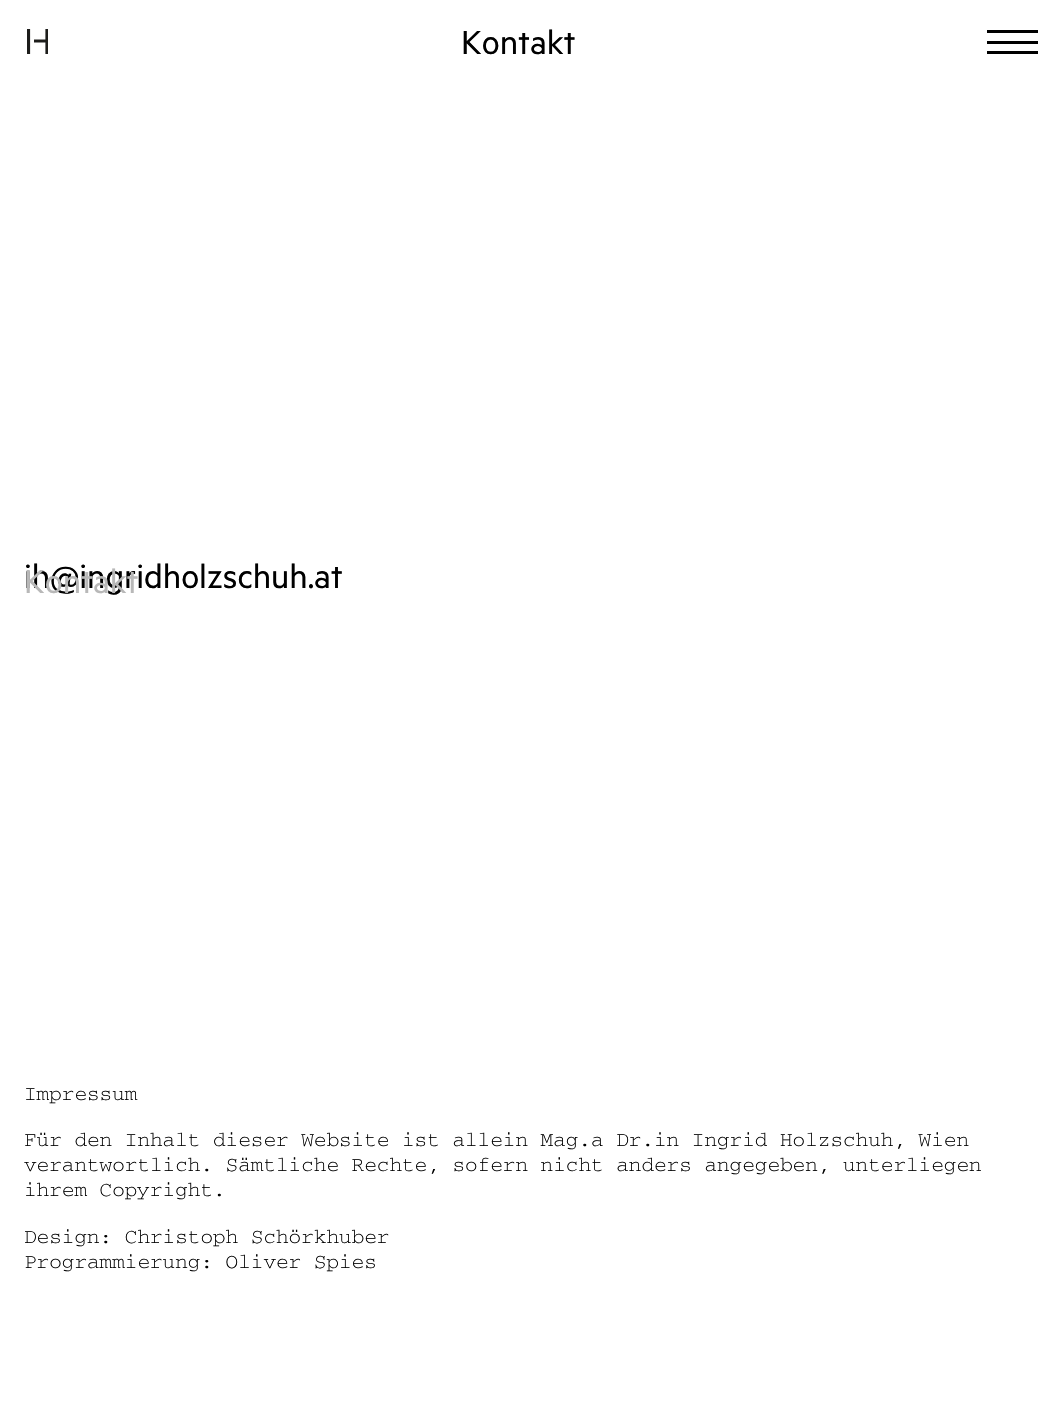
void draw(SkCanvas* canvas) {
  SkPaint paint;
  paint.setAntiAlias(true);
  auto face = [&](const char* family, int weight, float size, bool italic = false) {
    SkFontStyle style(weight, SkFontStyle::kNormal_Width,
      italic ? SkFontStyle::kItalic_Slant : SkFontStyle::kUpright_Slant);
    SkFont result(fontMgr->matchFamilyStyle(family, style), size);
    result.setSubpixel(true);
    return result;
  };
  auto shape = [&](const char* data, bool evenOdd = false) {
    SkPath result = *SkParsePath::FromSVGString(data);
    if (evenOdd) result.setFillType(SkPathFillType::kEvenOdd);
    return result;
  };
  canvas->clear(0xffffffff);
  canvas->save();
  canvas->clipRect(SkRect::MakeXYWH(27, 29, 21, 25));
  paint.setStroke(true);
  paint.setStrokeWidth(3.2f);
  paint.setColor(0xff1d1d1b);
  canvas->drawPath(shape("M47 28.5V54.5M28.5 28.5V54.5"), paint);
  canvas->restore();
  paint.setStrokeWidth(3);
  canvas->drawPath(shape("M48 41H34"), paint);
  paint.setStroke(false);
  {
    const struct { float x, y, w, h; SkColor color; } items[] = {
      {987, 30, 51, 3, 0xff000000},
      {987, 41, 51, 3, 0xff000000},
      {987, 51, 51, 3, 0xff000000},
    };
    for (auto [x, y, w, h, color] : items) {
      paint.setColor(color);
      canvas->drawRect(SkRect::MakeXYWH(x, y, w, h), paint);
    }
  }
  auto f0 = face("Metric", 400, 37.5f);
  canvas->drawString("Kontakt", 461, 54, f0, paint);
  canvas->drawString("ih@ingridholzschuh.at", 24, 588, f0, paint);
  auto f1 = face("Courier", 400, 21);
  {
    const struct { const char* s; float x, y; } items[] = {
      {"Impressum", 24, 1100},
      {"Für den Inhalt dieser Website ist allein Mag.a Dr.in Ingrid Holzschuh, Wien", 24, 1146},
      {"verantwortlich. Sämtliche Rechte, sofern nicht anders angegeben, unterliegen", 24, 1171},
      {"ihrem Copyright.", 24, 1196},
      {"Design: Christoph Schörkhuber", 24, 1243},
      {"Programmierung: Oliver Spies", 24, 1268},
    };
    for (auto [s, x, y] : items) {
      canvas->drawString(s, x, y, f1, paint);
    }
  }
  paint.setColor(0xffb8b8b8);
  canvas->drawString("Kontakt", 24, 593, f0, paint);
}
